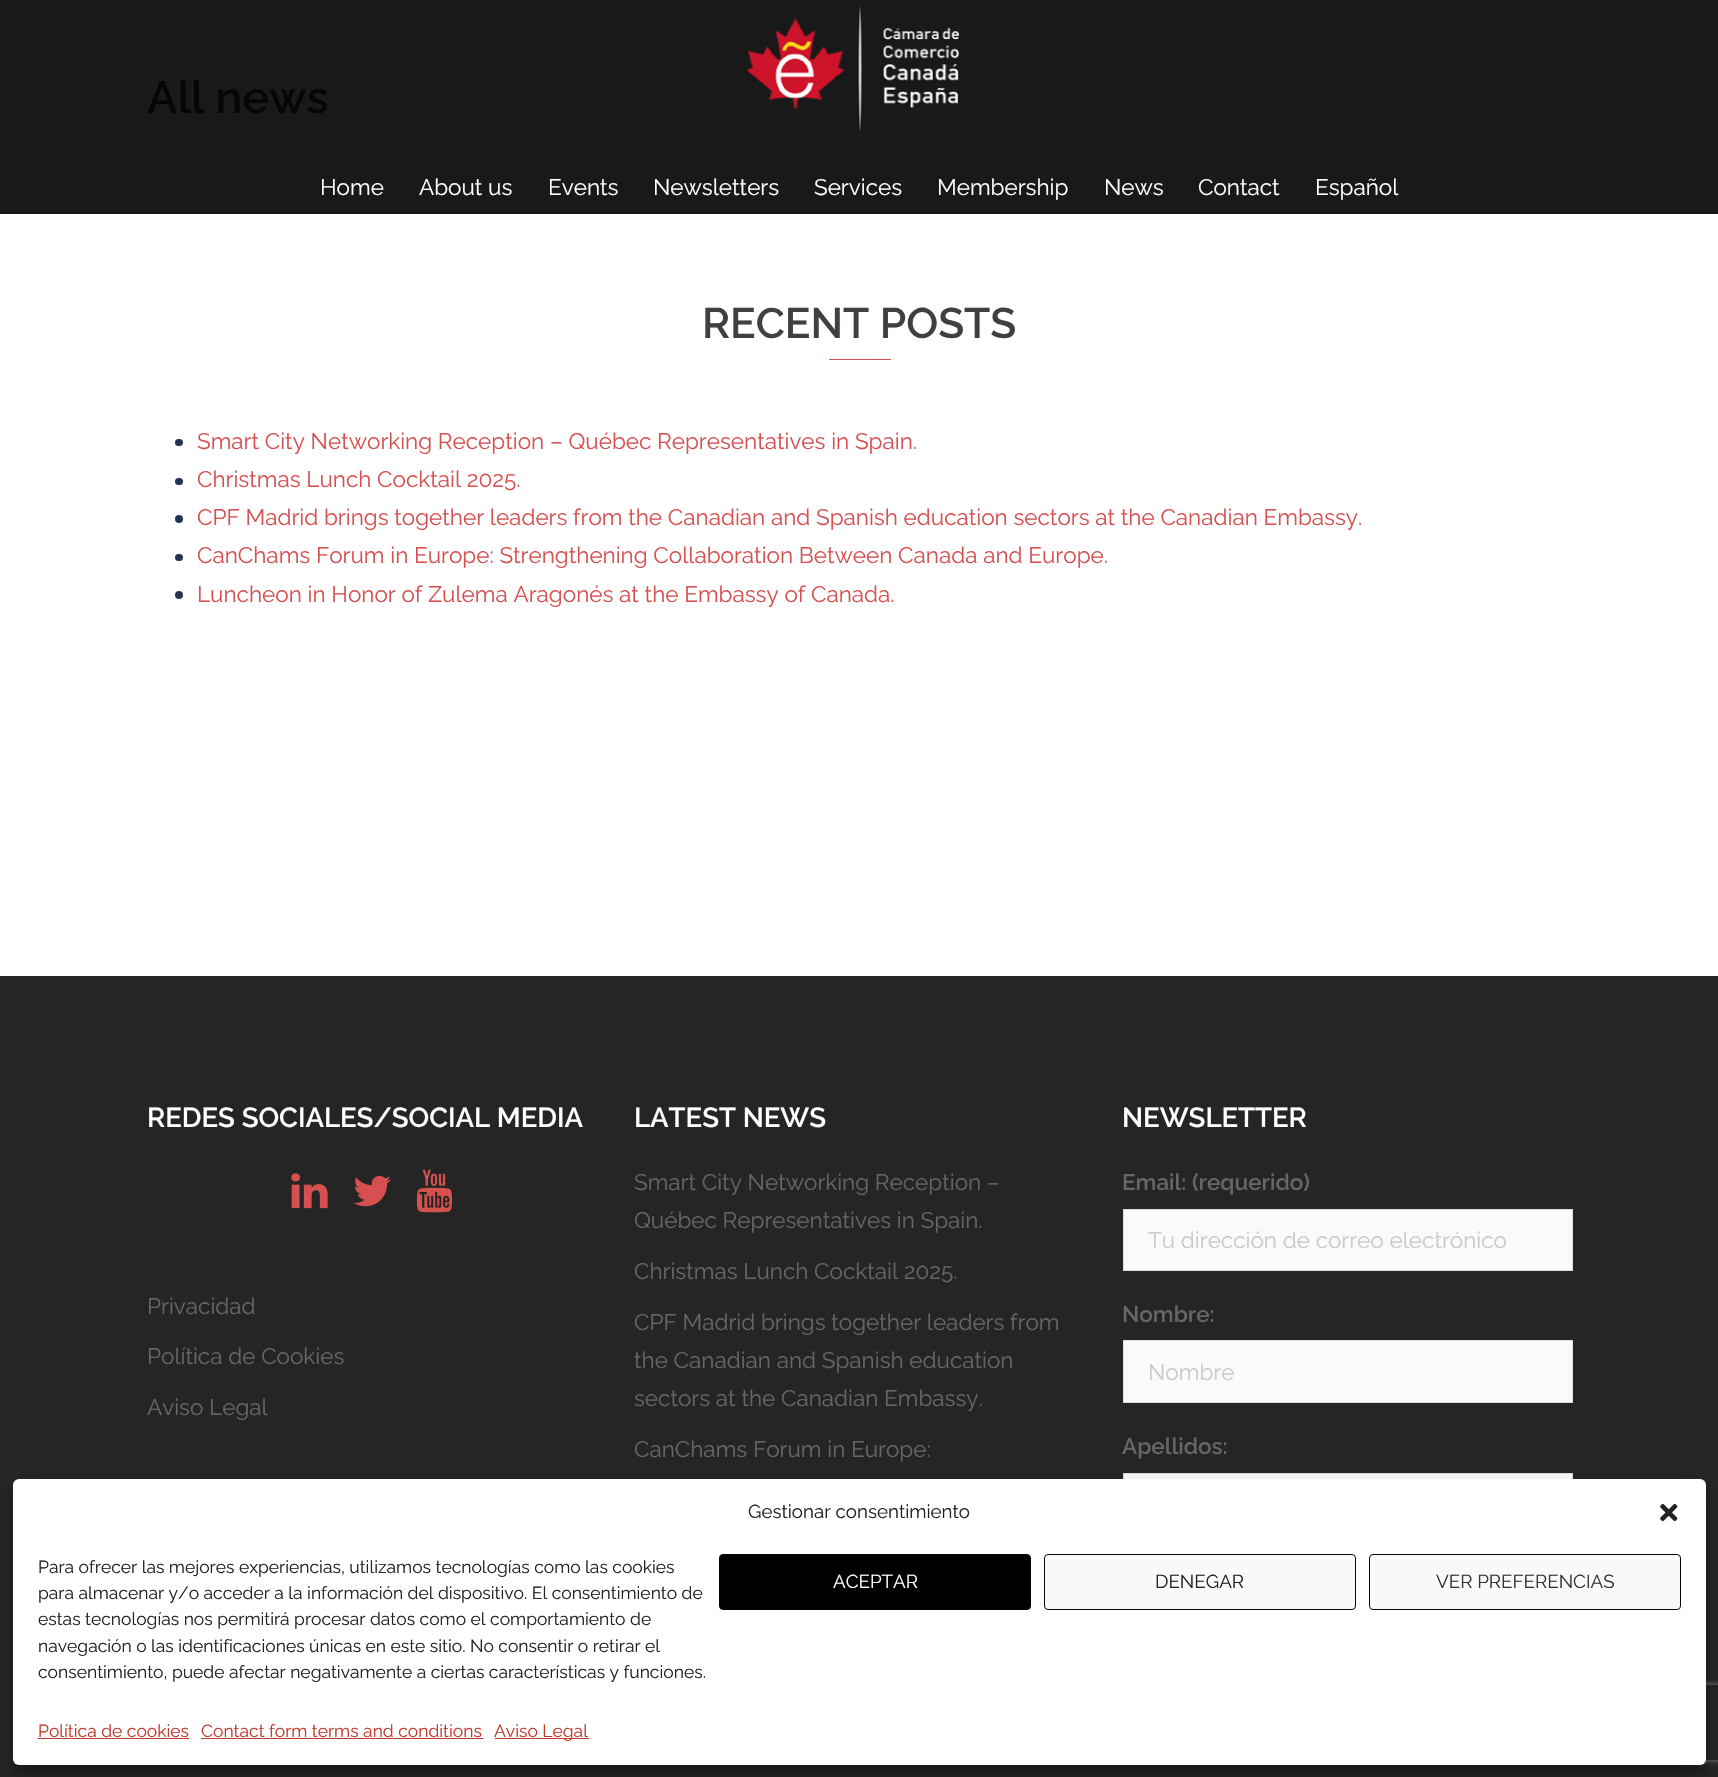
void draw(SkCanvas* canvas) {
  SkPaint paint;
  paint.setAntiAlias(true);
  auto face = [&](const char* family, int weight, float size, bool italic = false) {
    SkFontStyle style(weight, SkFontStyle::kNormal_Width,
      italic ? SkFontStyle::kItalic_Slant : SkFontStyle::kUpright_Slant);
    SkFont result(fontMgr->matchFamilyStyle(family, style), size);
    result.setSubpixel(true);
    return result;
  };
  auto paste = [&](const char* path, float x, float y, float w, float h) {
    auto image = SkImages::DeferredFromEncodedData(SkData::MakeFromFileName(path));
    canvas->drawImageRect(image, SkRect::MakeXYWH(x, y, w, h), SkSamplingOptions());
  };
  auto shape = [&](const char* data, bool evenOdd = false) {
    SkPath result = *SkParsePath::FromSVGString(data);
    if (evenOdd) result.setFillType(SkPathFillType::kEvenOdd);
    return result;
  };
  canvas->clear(0xffffffff);
  paint.setColor(0xff191919);
  canvas->drawRect(SkRect::MakeXYWH(0, 0, 1718, 214), paint);
  paint.setColor(0xffd65050);
  canvas->drawRect(SkRect::MakeXYWH(829, 359, 62, 1), paint);
  paint.setColor(0xff233452);
  canvas->drawRoundRect(SkRect::MakeXYWH(175, 439, 8, 7), 3.5f, 3.5f, paint);
  canvas->drawRoundRect(SkRect::MakeXYWH(175, 478, 8, 7), 3.5f, 3.5f, paint);
  canvas->drawCircle(179, 519, 4, paint);
  canvas->drawRoundRect(SkRect::MakeXYWH(175, 554, 8, 7), 3.5f, 3.5f, paint);
  canvas->drawCircle(179, 595, 4, paint);
  paste("img/1.png", 747, 6, 212, 125);
  paint.setColor(0xff252525);
  canvas->drawRect(SkRect::MakeXYWH(0, 976, 1718, 801), paint);
  paste("img/2.png", 291, 1173, 37, 36);
  paste("img/3.png", 353, 1175, 38, 32);
  paste("img/4.png", 416, 1169, 37, 44);
  paint.setColor(0xfffafafa);
  canvas->drawRect(SkRect::MakeXYWH(1123.5f, 1209.5f, 449, 61), paint);
  paint.setStroke(true);
  paint.setStrokeWidth(1);
  paint.setColor(0xffdbdbdb);
  canvas->drawRect(SkRect::MakeXYWH(1123.5f, 1209.5f, 449, 61), paint);
  paint.setStroke(false);
  paint.setColor(0xfffafafa);
  canvas->drawRect(SkRect::MakeXYWH(1123.5f, 1340.5f, 449, 62), paint);
  paint.setStroke(true);
  paint.setColor(0xffdbdbdb);
  canvas->drawRect(SkRect::MakeXYWH(1123.5f, 1340.5f, 449, 62), paint);
  paint.setStroke(false);
  paint.setColor(0xfffafafa);
  canvas->drawRect(SkRect::MakeXYWH(1124, 1474, 448, 5), paint);
  paint.setStroke(true);
  paint.setColor(0xffdbdbdb);
  canvas->drawRect(SkRect::MakeXYWH(1123.5f, 1473.5f, 449, 61), paint);
  paint.setStroke(false);
  paint.setColor(0x3b000000);
  paint.setMaskFilter(SkMaskFilter::MakeBlur(kNormal_SkBlurStyle, 4));
  canvas->drawRoundRect(SkRect::MakeXYWH(13, 1486, 1693, 287), 6, 6, paint);
  paint.setMaskFilter(nullptr);
  paint.setColor(0x30000000);
  paint.setMaskFilter(SkMaskFilter::MakeBlur(kNormal_SkBlurStyle, 12.5f));
  canvas->drawRoundRect(SkRect::MakeXYWH(13, 1491, 1693, 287), 6, 6, paint);
  paint.setMaskFilter(nullptr);
  canvas->save();
  canvas->clipPath(shape("M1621 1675H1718V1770H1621ZM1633.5 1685H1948.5C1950 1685 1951 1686 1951 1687.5V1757.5C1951 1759 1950 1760 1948.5 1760H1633.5C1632 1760 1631 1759 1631 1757.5V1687.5C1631 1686 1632 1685 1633.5 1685Z", true), true);
  paint.setColor(0xff808080);
  paint.setMaskFilter(SkMaskFilter::MakeBlur(kNormal_SkBlurStyle, 3));
  canvas->drawRoundRect(SkRect::MakeXYWH(1631, 1685, 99, 75), 2.5f, 2.5f, paint);
  paint.setMaskFilter(nullptr);
  canvas->restore();
  paint.setColor(0xffffffff);
  canvas->drawRoundRect(SkRect::MakeXYWH(13, 1479, 1693, 286), 6, 6, paint);
  paste("img/5.png", 1660, 1503, 18, 19);
  paint.setColor(0xff000000);
  canvas->drawRoundRect(SkRect::MakeXYWH(719.5f, 1554.5f, 311, 55), 3.5f, 3.5f, paint);
  paint.setStroke(true);
  paint.setColor(0xff060606);
  canvas->drawRoundRect(SkRect::MakeXYWH(719.5f, 1554.5f, 311, 55), 3.5f, 3.5f, paint);
  paint.setStroke(false);
  paint.setColor(0xfff9f9f9);
  canvas->drawRoundRect(SkRect::MakeXYWH(1044.5f, 1554.5f, 311, 55), 3.5f, 3.5f, paint);
  paint.setStroke(true);
  paint.setColor(0xff060606);
  canvas->drawRoundRect(SkRect::MakeXYWH(1044.5f, 1554.5f, 311, 55), 3.5f, 3.5f, paint);
  paint.setStroke(false);
  paint.setColor(0xfff9f9f9);
  canvas->drawRoundRect(SkRect::MakeXYWH(1369.5f, 1554.5f, 311, 55), 3.5f, 3.5f, paint);
  paint.setStroke(true);
  paint.setColor(0xff080707);
  canvas->drawRoundRect(SkRect::MakeXYWH(1369.5f, 1554.5f, 311, 55), 3.5f, 3.5f, paint);
  paint.setStroke(false);
  {
    const struct { float x, y, w, h; SkColor color; } items[] = {
      {38, 1738, 151, 1, 0xffc0392b},
      {201, 1738, 282, 1, 0xffc0392b},
      {495, 1738, 94, 1, 0xffc0392b},
    };
    for (auto [x, y, w, h, color] : items) {
      paint.setColor(color);
      canvas->drawRect(SkRect::MakeXYWH(x, y, w, h), paint);
    }
  }
  auto f0 = face("Raleway", 600, 45);
  paint.setColor(0xff070606);
  canvas->drawString("All news", 147, 113, f0, paint);
  auto f1 = face("Raleway", 600, 42.5f);
  paint.setColor(0xff443f3f);
  canvas->drawString("RECENT POSTS", 702, 338, f1, paint);
  auto f2 = face("Raleway", 400, 22.5f);
  paint.setColor(0xffd65050);
  {
    const struct { const char* s; float x, y; } items[] = {
      {"Smart City Networking Reception – Québec Representatives in Spain.", 197, 449},
      {"Christmas Lunch Cocktail 2025.", 197, 487},
      {"CPF Madrid brings together leaders from the Canadian and Spanish education sectors at the Canadian Embassy.", 197, 525},
      {"CanChams Forum in Europe: Strengthening Collaboration Between Canada and Europe.", 197, 563},
      {"Luncheon in Honor of Zulema Aragonés at the Embassy of Canada.", 197, 602},
    };
    for (auto [s, x, y] : items) {
      canvas->drawString(s, x, y, f2, paint);
    }
  }
  paint.setColor(0xffffffff);
  {
    const struct { const char* s; float x, y; } items[] = {
      {"Home", 320, 195},
      {"About us", 419, 195},
      {"Events", 548, 195},
      {"Newsletters", 653, 195},
      {"Services", 814, 195},
      {"Membership", 937, 195},
      {"News", 1104, 195},
      {"Contact", 1198, 195},
      {"Español", 1315, 195},
    };
    for (auto [s, x, y] : items) {
      canvas->drawString(s, x, y, f2, paint);
    }
  }
  auto f3 = face("Raleway", 600, 27.5f);
  canvas->drawString("REDES SOCIALES/SOCIAL MEDIA", 147, 1127, f3, paint);
  paint.setColor(0xff666666);
  {
    const struct { const char* s; float x, y; } items[] = {
      {"Privacidad", 147, 1314},
      {"Política de Cookies", 147, 1364},
      {"Aviso Legal", 147, 1415},
    };
    for (auto [s, x, y] : items) {
      canvas->drawString(s, x, y, f2, paint);
    }
  }
  paint.setColor(0xffffffff);
  canvas->drawString("LATEST NEWS", 634, 1127, f3, paint);
  paint.setColor(0xff666666);
  {
    const struct { const char* s; float x, y; } items[] = {
      {"Smart City Networking Reception –", 634, 1190},
      {"Québec Representatives in Spain.", 634, 1228},
      {"Christmas Lunch Cocktail 2025.", 634, 1279},
      {"CPF Madrid brings together leaders from", 634, 1330},
      {"the Canadian and Spanish education", 634, 1368},
      {"sectors at the Canadian Embassy.", 634, 1406},
      {"CanChams Forum in Europe:", 634, 1457},
    };
    for (auto [s, x, y] : items) {
      canvas->drawString(s, x, y, f2, paint);
    }
  }
  paint.setColor(0xffffffff);
  canvas->drawString("NEWSLETTER", 1122, 1127, f3, paint);
  auto f4 = face("Raleway", 600, 22.5f);
  paint.setColor(0xff666666);
  canvas->drawString("Email: (requerido)", 1122, 1190, f4, paint);
  paint.setColor(0xffcacaca);
  canvas->drawString("Tu dirección de correo electrónico", 1148, 1248, f2, paint);
  paint.setColor(0xff666666);
  canvas->drawString("Nombre:", 1122, 1322, f4, paint);
  paint.setColor(0xffcacaca);
  canvas->drawString("Nombre", 1148, 1380, f2, paint);
  paint.setColor(0xff666666);
  canvas->drawString("Apellidos:", 1122, 1454, f4, paint);
  auto f5 = face("Raleway", 400, 18.75f);
  paint.setColor(0xff222222);
  canvas->drawString("Gestionar consentimiento", 748, 1518, f5, paint);
  auto f6 = face("Raleway", 400, 17.5f);
  {
    const struct { const char* s; float x, y; } items[] = {
      {"Para ofrecer las mejores experiencias, utilizamos tecnologías como las cookies", 38, 1573},
      {"para almacenar y/o acceder a la información del dispositivo. El consentimiento de", 38, 1599},
      {"estas tecnologías nos permitirá procesar datos como el comportamiento de", 38, 1625},
      {"navegación o las identificaciones únicas en este sitio. No consentir o retirar el", 38, 1652},
      {"consentimiento, puede afectar negativamente a ciertas características y funciones.", 38, 1678},
    };
    for (auto [s, x, y] : items) {
      canvas->drawString(s, x, y, f6, paint);
    }
  }
  paint.setColor(0xffffffff);
  canvas->drawString("ACEPTAR", 833, 1588, f5, paint);
  paint.setColor(0xff222222);
  canvas->drawString("DENEGAR", 1155, 1588, f5, paint);
  paint.setColor(0xff333333);
  canvas->drawString("VER PREFERENCIAS", 1436, 1588, f5, paint);
  paint.setColor(0xffc0392b);
  {
    const struct { const char* s; float x, y; } items[] = {
      {"Política de cookies", 38, 1737},
      {"Contact form terms and conditions", 201, 1737},
      {"Aviso Legal", 494, 1737},
    };
    for (auto [s, x, y] : items) {
      canvas->drawString(s, x, y, f6, paint);
    }
  }
}
